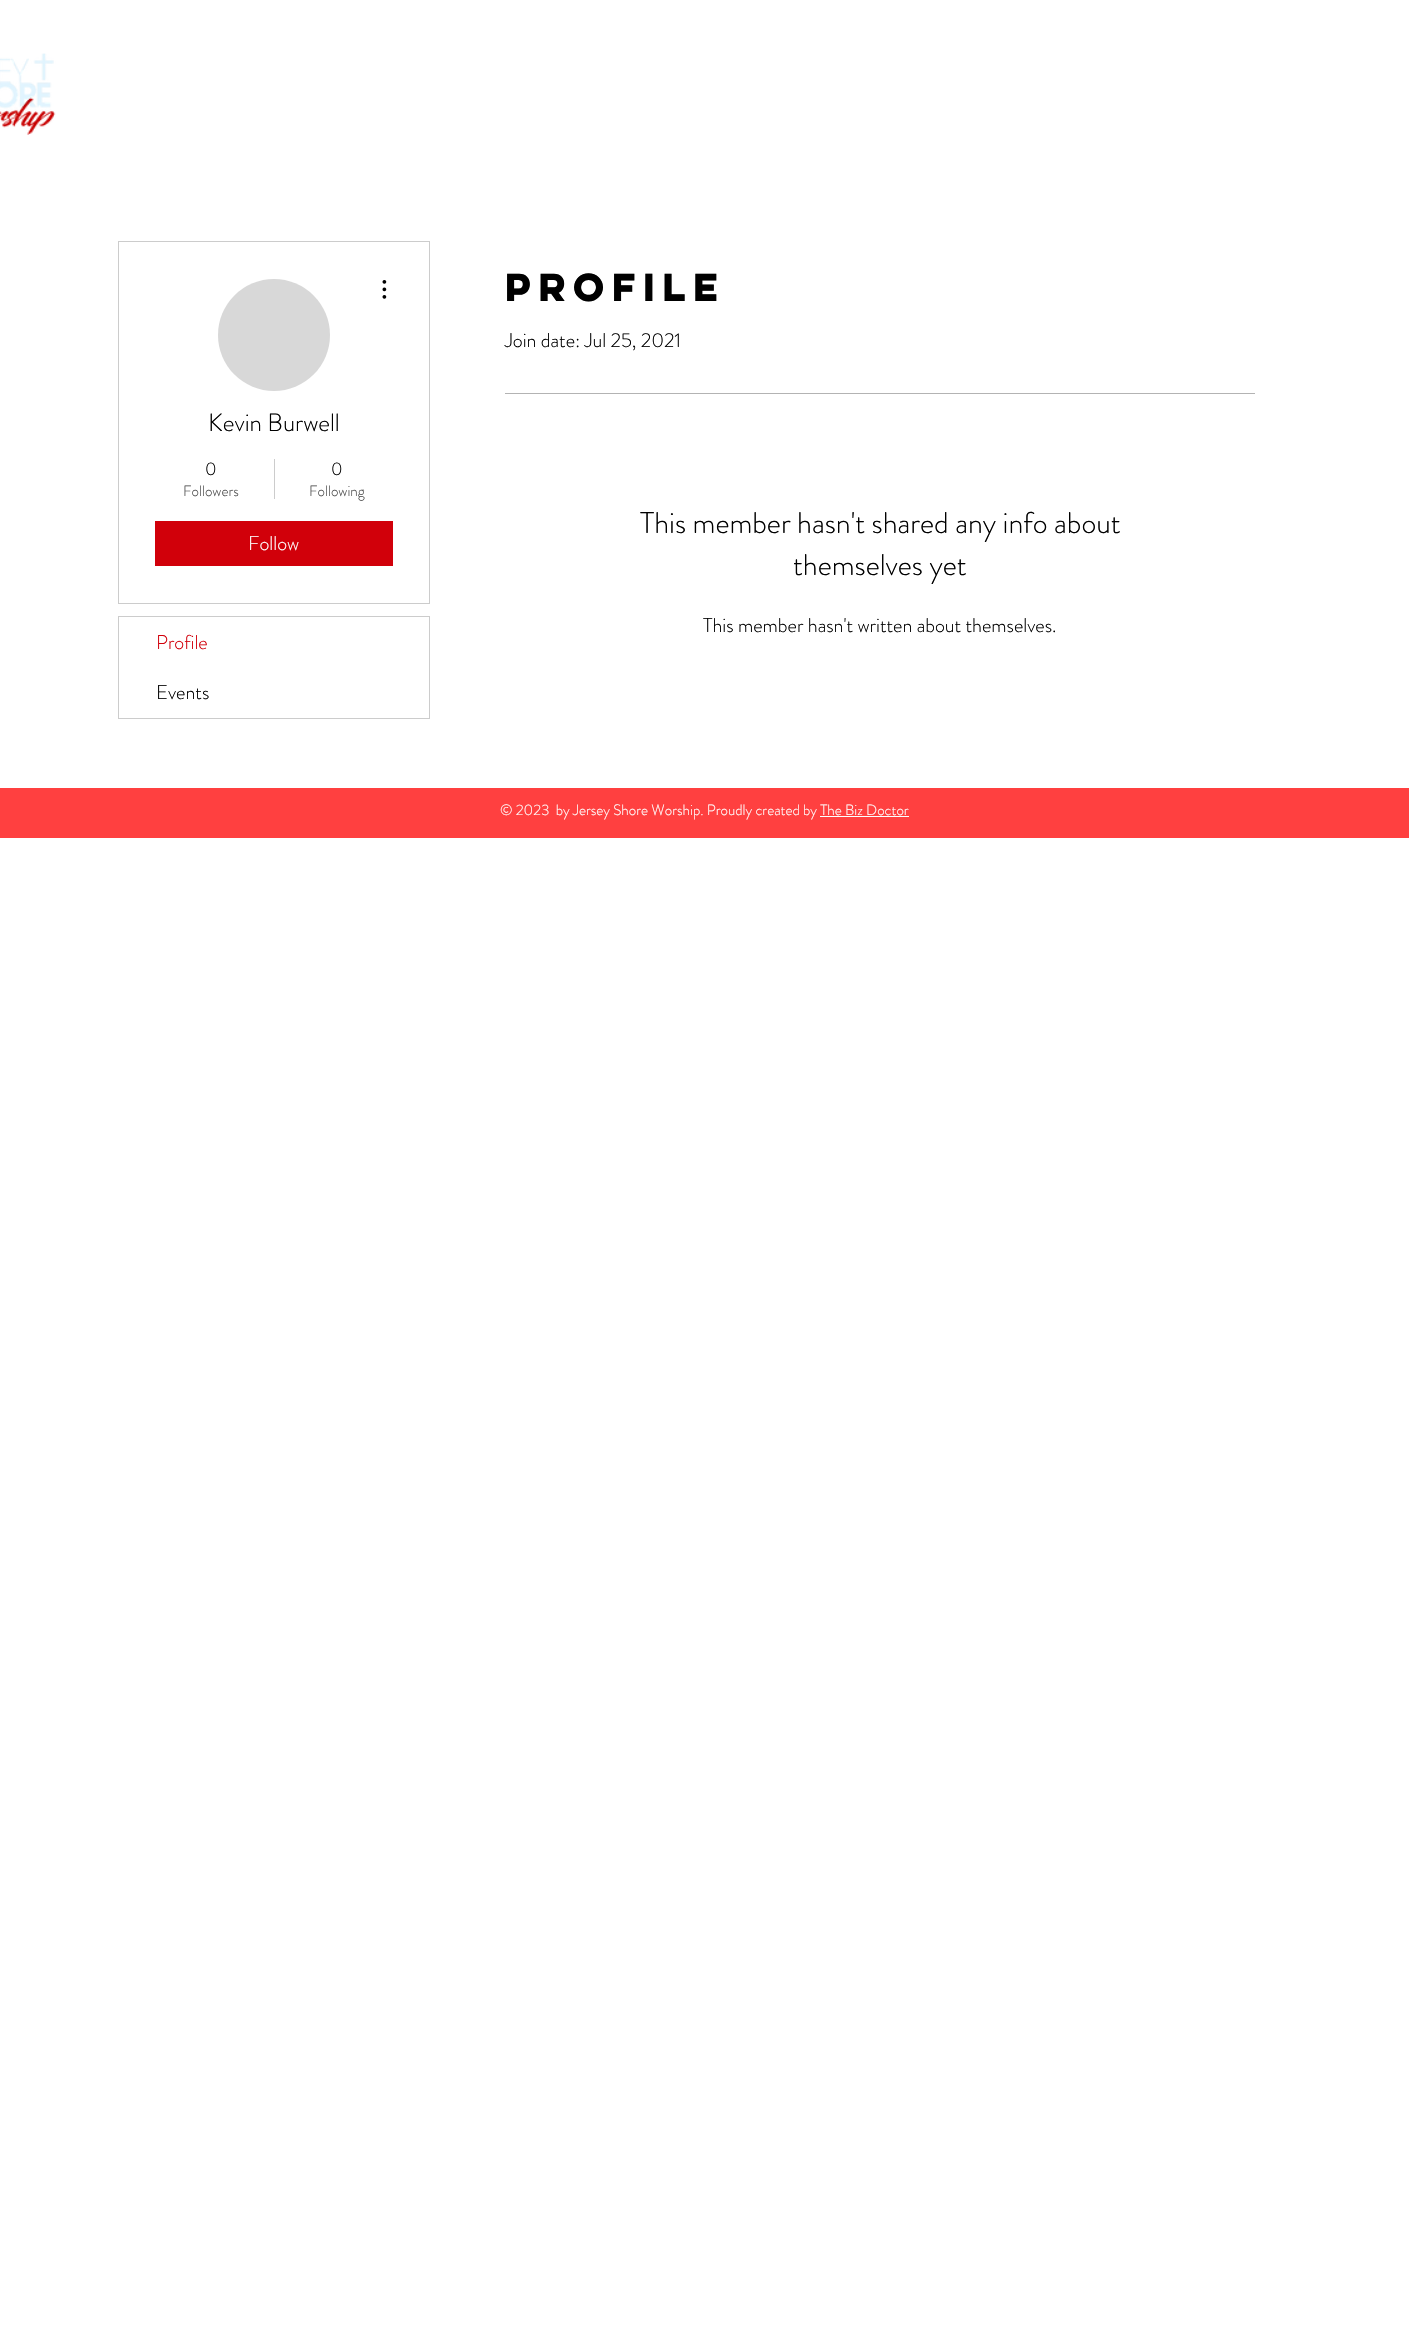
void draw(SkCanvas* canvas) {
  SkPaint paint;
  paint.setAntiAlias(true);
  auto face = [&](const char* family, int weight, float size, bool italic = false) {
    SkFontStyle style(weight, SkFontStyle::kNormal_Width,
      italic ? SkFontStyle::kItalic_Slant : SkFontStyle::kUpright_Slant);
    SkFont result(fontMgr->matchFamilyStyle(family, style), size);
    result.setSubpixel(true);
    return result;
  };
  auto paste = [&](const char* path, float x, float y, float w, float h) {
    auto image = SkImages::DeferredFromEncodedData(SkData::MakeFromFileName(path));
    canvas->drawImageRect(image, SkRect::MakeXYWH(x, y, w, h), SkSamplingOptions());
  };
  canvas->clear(0xffffffff);
  paste("img/1.png", 0, 53, 56, 82);
  paint.setStroke(true);
  paint.setStrokeWidth(1);
  paint.setColor(0xffcccccc);
  canvas->drawRect(SkRect::MakeXYWH(118.5f, 241.5f, 311, 362), paint);
  paint.setStroke(false);
  paint.setColor(0xffd8d8d8);
  canvas->drawCircle(274, 335, 56, paint);
  paste("img/2.png", 382, 280, 5, 19);
  paint.setColor(0xffcccccc);
  canvas->drawRect(SkRect::MakeXYWH(274, 459, 1, 40), paint);
  paint.setColor(0xffd1000a);
  canvas->drawRect(SkRect::MakeXYWH(155, 521, 238, 45), paint);
  paint.setStroke(true);
  paint.setColor(0xffcccccc);
  canvas->drawRect(SkRect::MakeXYWH(118.5f, 616.5f, 311, 102), paint);
  paint.setStroke(false);
  {
    const struct { float x, y, w, h; SkColor color; } items[] = {
      {505, 393, 750, 1, 0xffb3b3b3},
      {0, 788, 1409, 50, 0xffff4040},
      {820, 816, 89, 1, 0xffffffff},
    };
    for (auto [x, y, w, h, color] : items) {
      paint.setColor(color);
      canvas->drawRect(SkRect::MakeXYWH(x, y, w, h), paint);
    }
  }
  auto f0 = face("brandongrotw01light", 300, 25);
  paint.setColor(0xff000000);
  canvas->drawString("Kevin Burwell", 208, 431, f0, paint);
  auto f1 = face("brandongrotw01light", 300, 18);
  canvas->drawString("0", 205, 475, f1, paint);
  auto f2 = face("brandongrotw01light", 300, 15);
  paint.setColor(0xff4d4d4d);
  canvas->drawString("Followers", 183, 496, f2, paint);
  paint.setColor(0xff000000);
  canvas->drawString("0", 331, 475, f1, paint);
  paint.setColor(0xff4d4d4d);
  canvas->drawString("Following", 309, 496, f2, paint);
  auto f3 = face("brandongrotw01light", 300, 20);
  paint.setColor(0xffffffff);
  canvas->drawString("Follow", 248, 550, f3, paint);
  paint.setColor(0xffd1000a);
  canvas->drawString("Profile", 156, 649, f3, paint);
  paint.setColor(0xff000000);
  canvas->drawString("Events", 156, 699, f3, paint);
  auto f4 = face("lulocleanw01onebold", 700, 35);
  canvas->drawString("Profile", 505, 301, f4, paint);
  canvas->drawString("Join date: Jul 25, 2021", 505, 347, f3, paint);
  auto f5 = face("brandongrotw01light", 300, 30);
  canvas->drawString("This member hasn't shared any info about", 640, 533, f5, paint);
  canvas->drawString("themselves yet", 793, 575, f5, paint);
  canvas->drawString("This member hasn't written about themselves.", 703, 632, f3, paint);
  paint.setColor(0xffffffff);
  canvas->drawString("© 2023  by Jersey Shore Worship. Proudly created by The Biz Doctor", 500, 815, f2, paint);
}
